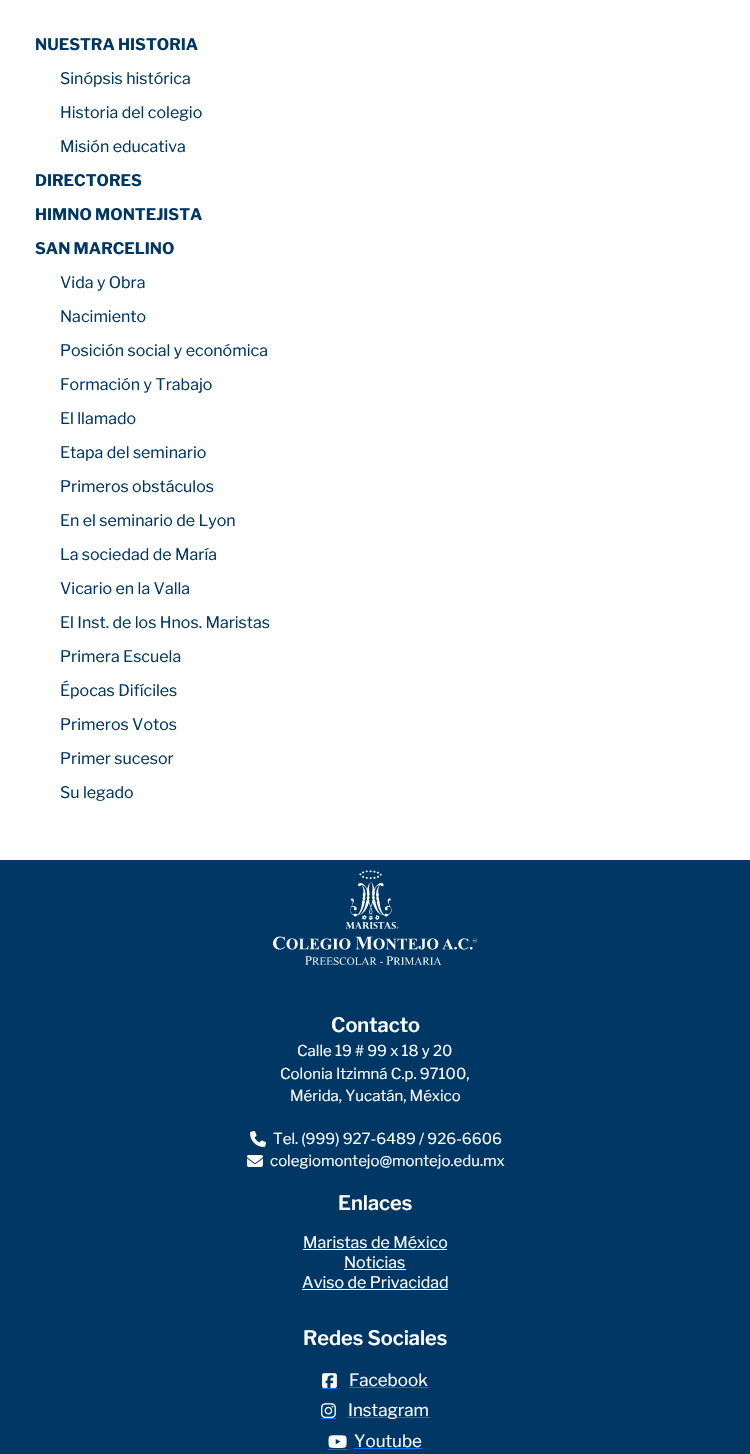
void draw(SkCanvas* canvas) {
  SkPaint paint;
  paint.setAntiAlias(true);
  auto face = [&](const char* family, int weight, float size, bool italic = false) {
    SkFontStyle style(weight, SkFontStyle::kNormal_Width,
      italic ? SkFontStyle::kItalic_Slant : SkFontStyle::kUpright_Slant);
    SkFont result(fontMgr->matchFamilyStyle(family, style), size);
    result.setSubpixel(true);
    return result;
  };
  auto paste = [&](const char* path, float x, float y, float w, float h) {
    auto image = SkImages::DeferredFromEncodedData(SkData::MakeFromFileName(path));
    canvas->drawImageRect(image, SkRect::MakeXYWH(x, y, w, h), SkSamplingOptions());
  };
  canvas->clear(0xffffffff);
  paint.setColor(0xff003764);
  canvas->drawRect(SkRect::MakeXYWH(0, 860, 750, 594), paint);
  paste("img/1.png", 273, 870, 204, 95);
  paste("img/2.png", 250, 1131, 16, 16);
  paste("img/3.png", 247, 1155, 16, 12);
  {
    const struct { float x, y, w, h; SkColor color; } items[] = {
      {303, 1249, 144, 1, 0xffffffff},
      {344, 1269, 62, 1, 0xffffffff},
      {302, 1289, 146, 1, 0xffffffff},
      {322, 1388, 15, 1, 0xff0071ff},
    };
    for (auto [x, y, w, h, color] : items) {
      paint.setColor(color);
      canvas->drawRect(SkRect::MakeXYWH(x, y, w, h), paint);
    }
  }
  paste("img/4.png", 322, 1373, 15, 16);
  canvas->drawRect(SkRect::MakeXYWH(349, 1387, 79, 1), paint);
  canvas->drawRect(SkRect::MakeXYWH(321, 1418, 15, 1), paint);
  paste("img/5.png", 321, 1403, 15, 16);
  canvas->drawRect(SkRect::MakeXYWH(348, 1417, 81, 1), paint);
  paste("img/6.png", 328, 1435, 19, 13);
  canvas->drawRect(SkRect::MakeXYWH(328, 1449, 19, 1), paint);
  canvas->drawRect(SkRect::MakeXYWH(354, 1448, 68, 1), paint);
  auto f0 = face("Libre Franklin", 700, 16);
  paint.setColor(0xff003764);
  canvas->drawString("NUESTRA HISTORIA", 35, 50, f0, paint);
  auto f1 = face("Libre Franklin", 400, 16);
  {
    const struct { const char* s; float x, y; } items[] = {
      {"Sinópsis histórica", 60, 84},
      {"Historia del colegio", 60, 118},
      {"Misión educativa", 60, 152},
    };
    for (auto [s, x, y] : items) {
      canvas->drawString(s, x, y, f1, paint);
    }
  }
  {
    const struct { const char* s; float x, y; } items[] = {
      {"DIRECTORES", 35, 186},
      {"HIMNO MONTEJISTA", 35, 220},
      {"SAN MARCELINO", 35, 254},
    };
    for (auto [s, x, y] : items) {
      canvas->drawString(s, x, y, f0, paint);
    }
  }
  {
    const struct { const char* s; float x, y; } items[] = {
      {"Vida y Obra", 60, 288},
      {"Nacimiento", 60, 322},
      {"Posición social y económica", 60, 356},
      {"Formación y Trabajo", 60, 390},
      {"El llamado", 60, 424},
      {"Etapa del seminario", 60, 458},
      {"Primeros obstáculos", 60, 492},
      {"En el seminario de Lyon", 60, 526},
      {"La sociedad de María", 60, 560},
      {"Vicario en la Valla", 60, 594},
      {"El Inst. de los Hnos. Maristas", 60, 628},
      {"Primera Escuela", 60, 662},
      {"Épocas Difíciles", 60, 696},
      {"Primeros Votos", 60, 730},
      {"Primer sucesor", 60, 764},
      {"Su legado", 60, 798},
    };
    for (auto [s, x, y] : items) {
      canvas->drawString(s, x, y, f1, paint);
    }
  }
  auto f2 = face("Libre Franklin", 600, 20);
  paint.setColor(0xffffffff);
  canvas->drawString("Contacto", 331, 1032, f2, paint);
  auto f3 = face("Libre Franklin", 400, 15);
  {
    const struct { const char* s; float x, y; } items[] = {
      {"Calle 19 # 99 x 18 y 20", 297, 1056},
      {"Colonia Itzimná C.p. 97100,", 280, 1079},
      {"Mérida, Yucatán, México", 290, 1101},
      {"Tel. (999) 927-6489 / 926-6606", 273, 1144},
      {"colegiomontejo@montejo.edu.mx", 270, 1166},
    };
    for (auto [s, x, y] : items) {
      canvas->drawString(s, x, y, f3, paint);
    }
  }
  canvas->drawString("Enlaces", 338, 1210, f2, paint);
  {
    const struct { const char* s; float x, y; } items[] = {
      {"Maristas de México", 303, 1248},
      {"Noticias", 344, 1268},
      {"Aviso de Privacidad", 302, 1288},
    };
    for (auto [s, x, y] : items) {
      canvas->drawString(s, x, y, f1, paint);
    }
  }
  canvas->drawString("Redes Sociales", 303, 1345, f2, paint);
  auto f4 = face("Libre Franklin", 400, 17);
  {
    const struct { const char* s; float x, y; } items[] = {
      {"Facebook", 349, 1386},
      {"Instagram", 348, 1416},
      {"Youtube", 354, 1447},
    };
    for (auto [s, x, y] : items) {
      canvas->drawString(s, x, y, f4, paint);
    }
  }
}
